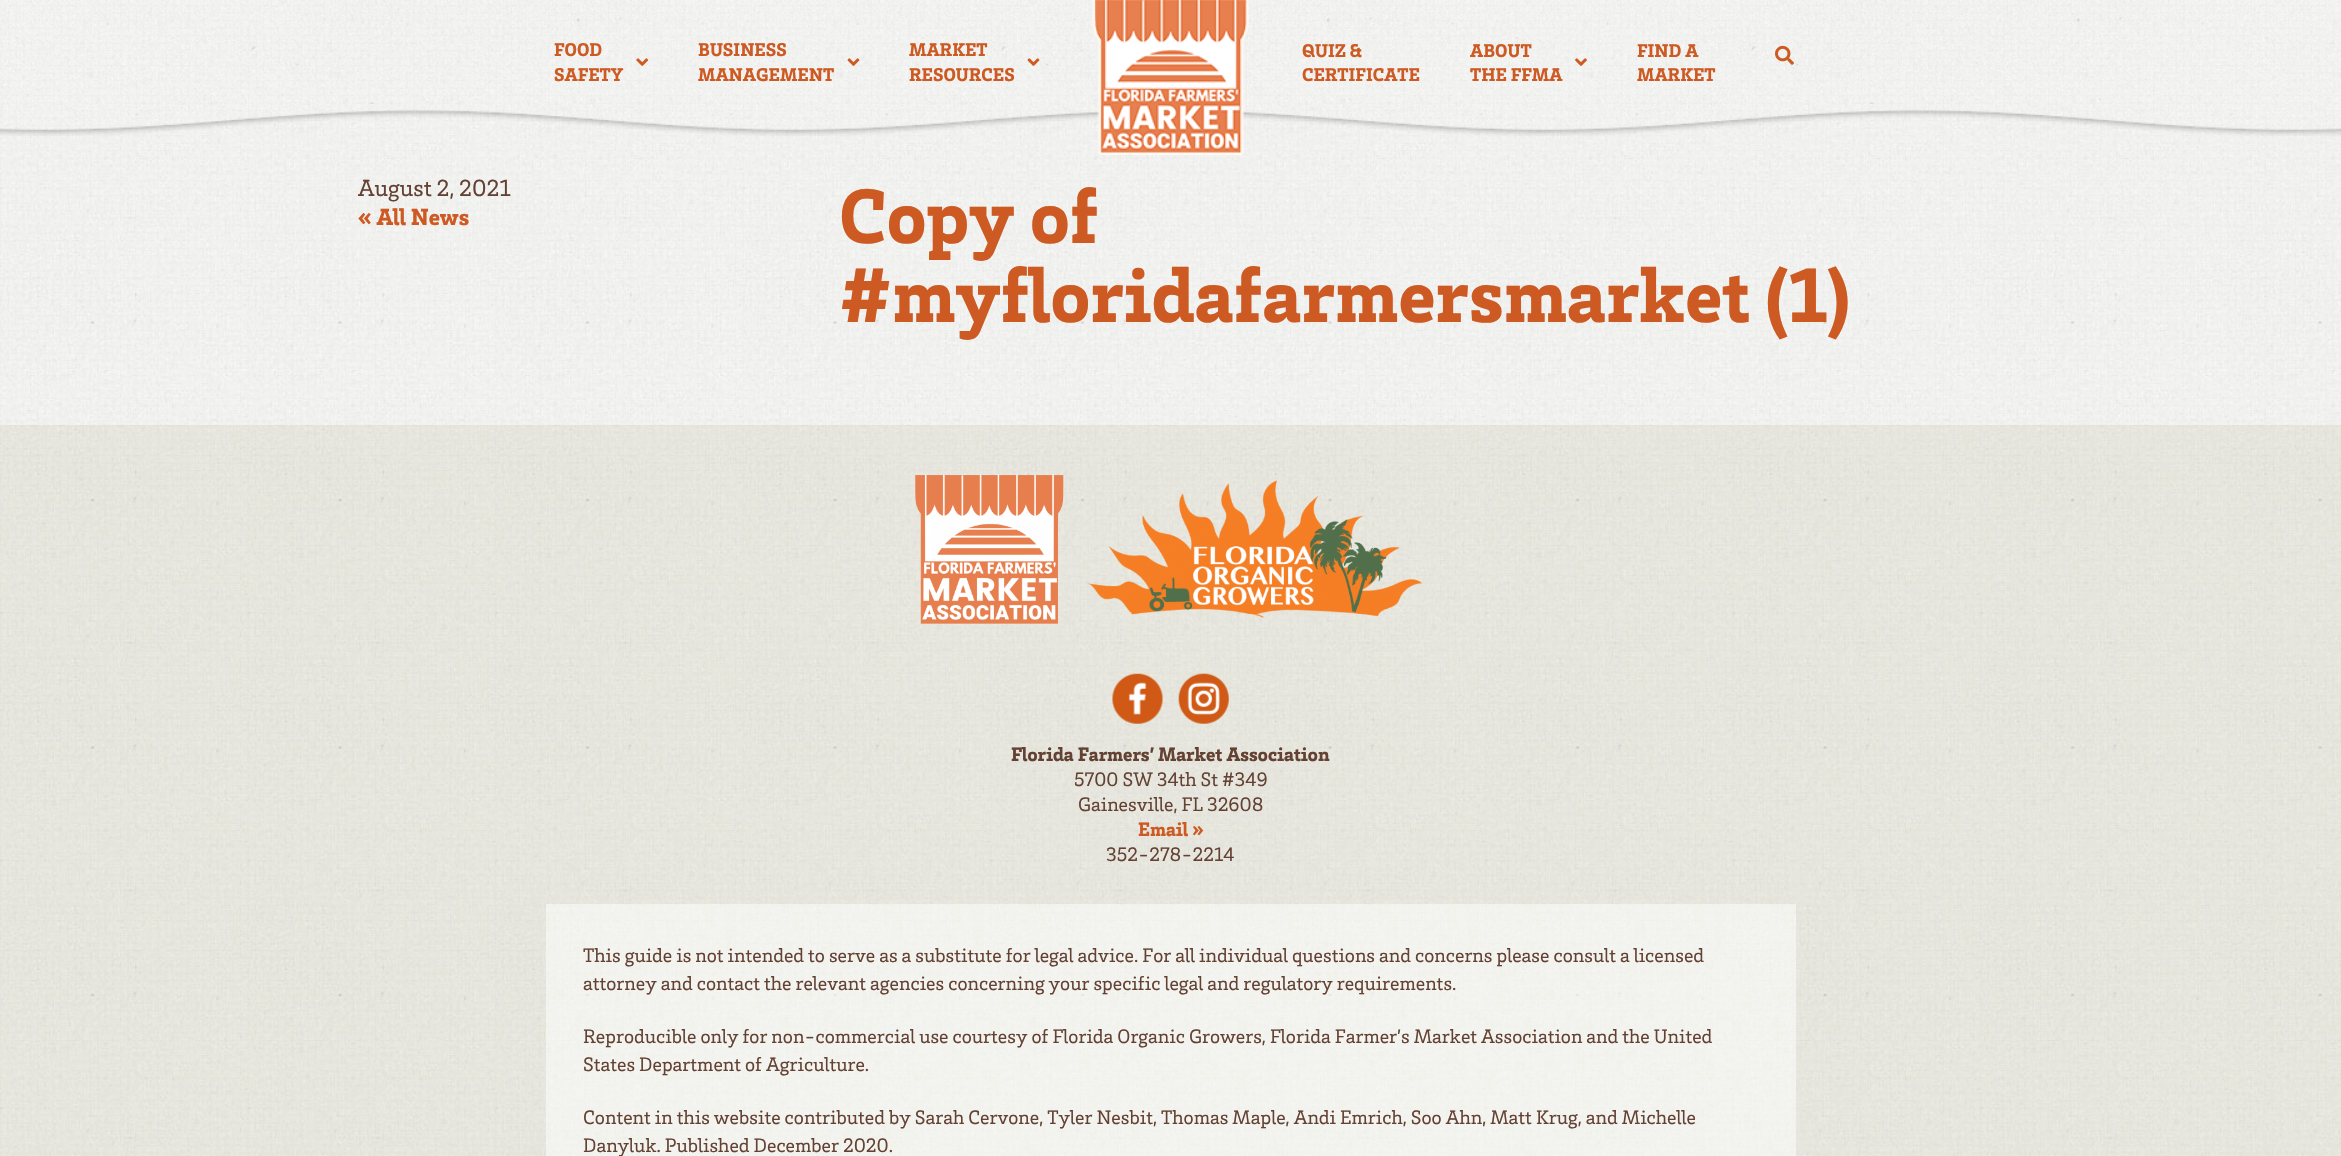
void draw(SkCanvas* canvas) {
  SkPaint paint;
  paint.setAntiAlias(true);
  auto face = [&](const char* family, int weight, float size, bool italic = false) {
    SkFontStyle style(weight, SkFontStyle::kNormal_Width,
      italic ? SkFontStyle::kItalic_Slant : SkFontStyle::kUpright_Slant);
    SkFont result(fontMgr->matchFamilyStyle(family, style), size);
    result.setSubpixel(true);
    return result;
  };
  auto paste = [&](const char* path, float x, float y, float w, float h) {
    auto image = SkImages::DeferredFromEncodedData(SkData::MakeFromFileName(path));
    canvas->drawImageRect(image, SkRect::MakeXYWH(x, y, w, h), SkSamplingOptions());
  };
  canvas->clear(0xffffffff);
  paste("img/1.png", 0, 109, 2341, 316);
  paste("img/2.png", 0, 0, 2341, 136);
  paste("img/3.png", 636, 58, 13, 8);
  paste("img/4.png", 847, 58, 13, 8);
  paste("img/5.png", 1027, 58, 13, 8);
  paste("img/6.png", 1092, 0, 157, 155);
  paste("img/7.png", 1575, 58, 12, 8);
  paste("img/8.png", 1775, 45, 19, 20);
  paste("img/9.png", 0, 425, 2341, 731);
  paste("img/10.png", 915, 475, 149, 149);
  paste("img/11.png", 1087, 480, 335, 138);
  paste("img/12.png", 1112, 673, 51, 51);
  paste("img/13.png", 1178, 673, 51, 51);
  paint.setColor(0x80ffffff);
  canvas->drawRect(SkRect::MakeXYWH(546, 904, 1250, 252), paint);
  auto f0 = face("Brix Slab", 900, 19);
  paint.setColor(0xffce5a23);
  {
    const struct { const char* s; float x, y; } items[] = {
      {"FOOD", 554, 56},
      {"SAFETY", 554, 81},
      {"BUSINESS", 698, 56},
      {"MANAGEMENT", 698, 81},
      {"MARKET", 909, 56},
      {"RESOURCES", 909, 81},
      {"QUIZ &", 1302, 57},
      {"CERTIFICATE", 1302, 81},
      {"ABOUT", 1470, 57},
      {"THE FFMA", 1470, 81},
      {"FIND A", 1637, 57},
      {"MARKET", 1637, 81},
    };
    for (auto [s, x, y] : items) {
      canvas->drawString(s, x, y, f0, paint);
    }
  }
  auto f1 = face("Brix Slab", 400, 24);
  paint.setColor(0xff634133);
  canvas->drawString("August 2, 2021", 358, 196, f1, paint);
  auto f2 = face("Brix Slab", 900, 24);
  paint.setColor(0xffce5a23);
  canvas->drawString("« All News", 358, 225, f2, paint);
  auto f3 = face("Brix Slab", 900, 79.25f);
  canvas->drawString("Copy of", 839, 243, f3, paint);
  canvas->drawString("#myfloridafarmersmarket (1)", 839, 322, f3, paint);
  auto f4 = face("Brix Slab", 900, 20);
  paint.setColor(0xff634133);
  canvas->drawString("Florida Farmers’ Market Association", 1011, 761, f4, paint);
  auto f5 = face("Brix Slab", 400, 20);
  canvas->drawString("5700 SW 34th St #349", 1074, 786, f5, paint);
  canvas->drawString("Gainesville, FL 32608", 1078, 811, f5, paint);
  paint.setColor(0xffce5a23);
  canvas->drawString("Email »", 1138, 836, f4, paint);
  paint.setColor(0xff634133);
  {
    const struct { const char* s; float x, y; } items[] = {
      {"352-278-2214", 1106, 861},
      {"This guide is not intended to serve as a substitute for legal advice. For all individual questions and concerns please consult a licensed", 583, 962},
      {"attorney and contact the relevant agencies concerning your specific legal and regulatory requirements.", 583, 990},
      {"Reproducible only for non-commercial use courtesy of Florida Organic Growers, Florida Farmer’s Market Association and the United", 583, 1043},
      {"States Department of Agriculture.", 583, 1071},
      {"Content in this website contributed by Sarah Cervone, Tyler Nesbit, Thomas Maple, Andi Emrich, Soo Ahn, Matt Krug, and Michelle", 583, 1124},
      {"Danyluk. Published December 2020.", 583, 1152},
    };
    for (auto [s, x, y] : items) {
      canvas->drawString(s, x, y, f5, paint);
    }
  }
}
